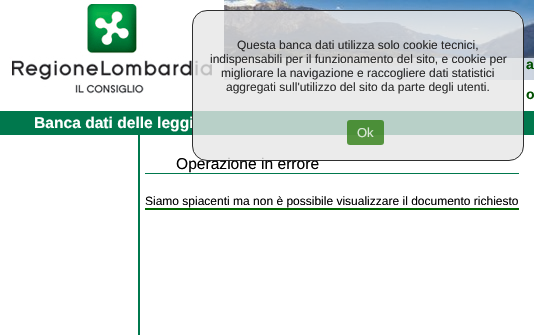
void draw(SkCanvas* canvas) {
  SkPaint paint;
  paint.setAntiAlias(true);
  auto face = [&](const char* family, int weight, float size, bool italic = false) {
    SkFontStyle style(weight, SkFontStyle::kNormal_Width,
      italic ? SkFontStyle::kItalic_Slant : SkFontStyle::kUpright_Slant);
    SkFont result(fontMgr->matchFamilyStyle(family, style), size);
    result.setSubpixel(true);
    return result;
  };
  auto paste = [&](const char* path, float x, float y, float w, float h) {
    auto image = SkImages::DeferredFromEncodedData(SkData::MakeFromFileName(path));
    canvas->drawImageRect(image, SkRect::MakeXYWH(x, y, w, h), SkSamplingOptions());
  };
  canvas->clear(0xffffffff);
  paste("img/1.png", 224, 0, 310, 80);
  paste("img/2.png", 0, 0, 224, 94);
  {
    const struct { float x, y, w, h; SkColor color; } items[] = {
      {0, 111, 534, 24, 0xff00784d},
      {138, 135, 2, 200, 0xff00784d},
      {145, 173, 374, 1, 0xff00784d},
      {145, 208, 374, 2, 0xff006600},
    };
    for (auto [x, y, w, h, color] : items) {
      paint.setColor(color);
      canvas->drawRect(SkRect::MakeXYWH(x, y, w, h), paint);
    }
  }
  auto f0 = face("Liberation Sans", 700, 14);
  paint.setColor(0xff004f00);
  canvas->drawString("a", 526, 69, f0, paint);
  canvas->drawString("o", 526, 99, f0, paint);
  auto f1 = face("Liberation Sans", 700, 15.6f);
  paint.setColor(0xffffffff);
  canvas->drawString("Banca dati delle leggi", 34, 128, f1, paint);
  auto f2 = face("Liberation Sans", 400, 15.6f);
  paint.setColor(0xff000000);
  canvas->drawString("Operazione in errore", 176, 169, f2, paint);
  paint.setColor(0xcce6e6e6);
  canvas->drawRoundRect(SkRect::MakeXYWH(192, 10, 332, 151), 15, 15, paint);
  paint.setStroke(true);
  paint.setStrokeWidth(1);
  paint.setColor(0xcc000000);
  canvas->drawRoundRect(SkRect::MakeXYWH(192.5f, 10.5f, 331, 150), 14.5f, 14.5f, paint);
  paint.setStroke(false);
  paint.setColor(0xcc2f7e14);
  canvas->drawRoundRect(SkRect::MakeXYWH(347, 120, 37, 25), 3, 3, paint);
  auto f3 = face("Liberation Sans", 400, 13);
  paint.setColor(0xffdbe9d8);
  canvas->drawString("Ok", 357, 137, f3, paint);
  auto f4 = face("Liberation Sans", 400, 12);
  paint.setColor(0xff2f2f2f);
  canvas->drawString("aggregati sull'utilizzo del sito da parte degli utenti.", 226, 91, f4, paint);
  paint.setColor(0xff282829);
  {
    const struct { const char* s; float x, y; } items[] = {
      {"migliorare la navigazione e raccogliere dati statistici", 221, 77},
      {"indispensabili per il funzionamento del sito, e cookie per", 210, 63},
      {"Questa banca dati utilizza solo cookie tecnici,", 237, 49},
    };
    for (auto [s, x, y] : items) {
      canvas->drawString(s, x, y, f4, paint);
    }
  }
  paint.setColor(0xff000000);
  canvas->drawString("Siamo spiacenti ma non è possibile visualizzare il documento richiesto", 145, 205, f4, paint);
}
